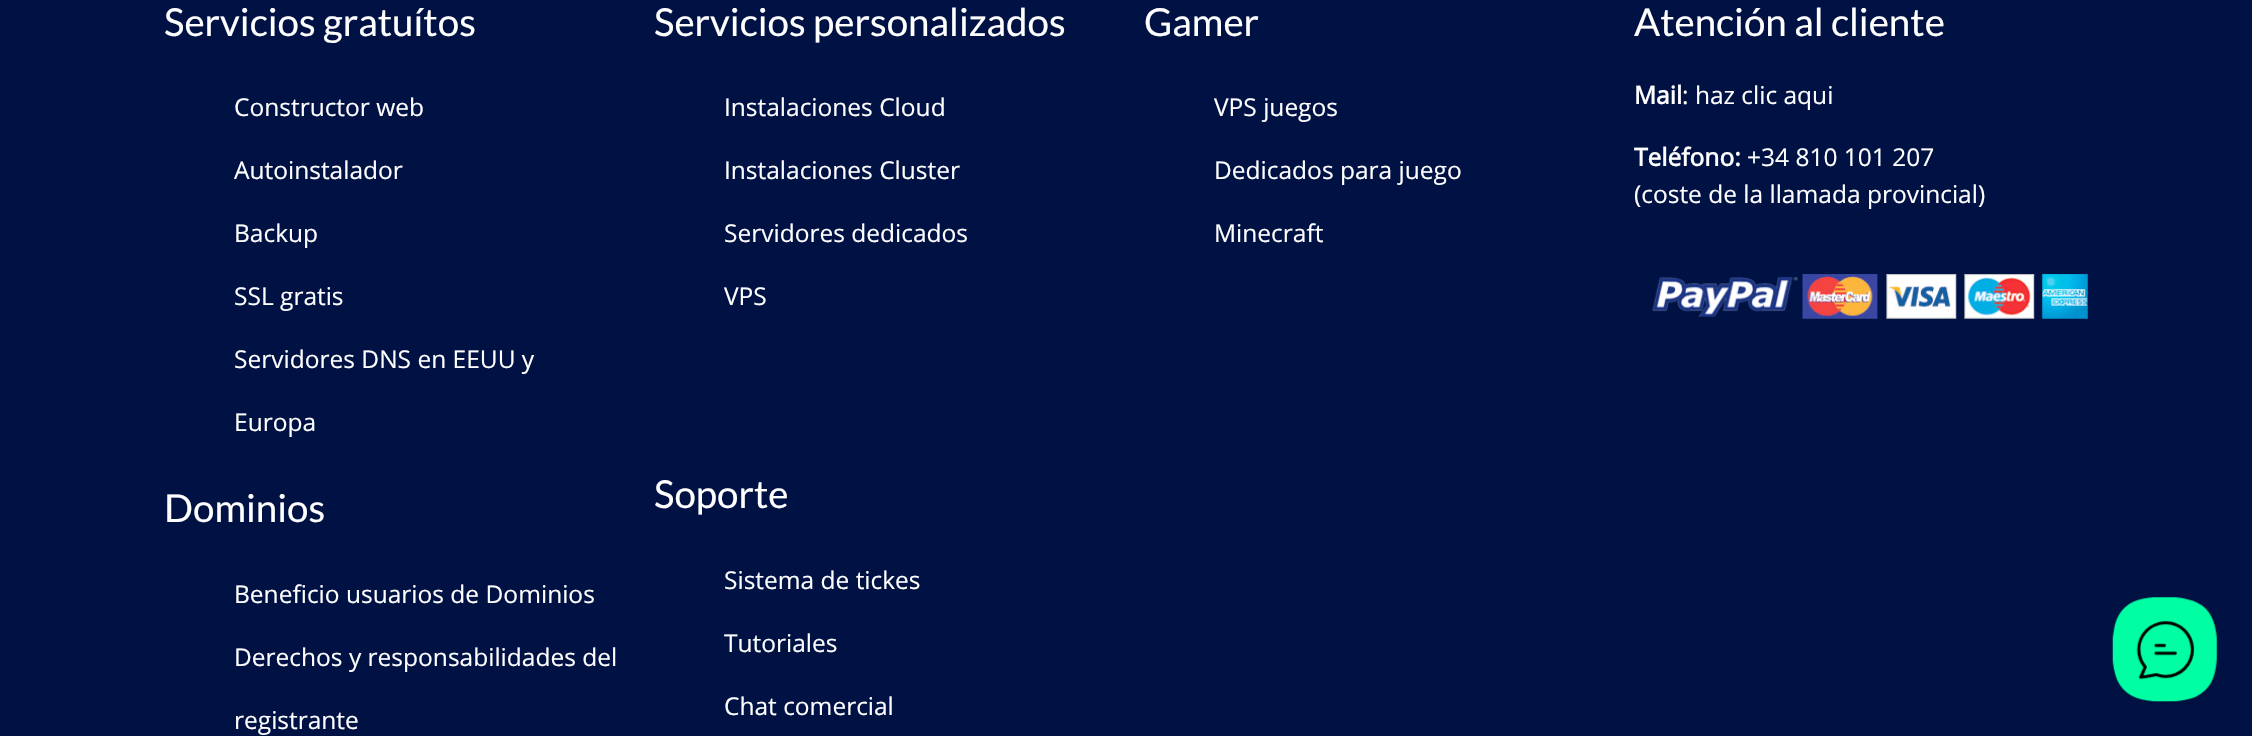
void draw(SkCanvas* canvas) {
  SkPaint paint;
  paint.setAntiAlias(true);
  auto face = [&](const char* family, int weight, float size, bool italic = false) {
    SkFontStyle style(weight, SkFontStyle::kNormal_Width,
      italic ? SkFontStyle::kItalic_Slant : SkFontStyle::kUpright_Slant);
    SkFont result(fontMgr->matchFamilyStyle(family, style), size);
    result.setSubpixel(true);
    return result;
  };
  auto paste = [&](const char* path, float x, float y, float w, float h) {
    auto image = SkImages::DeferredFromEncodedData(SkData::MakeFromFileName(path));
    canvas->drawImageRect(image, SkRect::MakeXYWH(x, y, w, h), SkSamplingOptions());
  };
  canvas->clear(0xff001144);
  paste("img/1.png", 1652, 274, 436, 45);
  paste("img/2.png", 2111, 597, 108, 108);
  auto f0 = face("Lato", 400, 38.5f);
  paint.setColor(0xffffffff);
  canvas->drawString("Servicios gratuítos", 164, 36, f0, paint);
  auto f1 = face("Open Sans", 400, 24.5f);
  {
    const struct { const char* s; float x, y; } items[] = {
      {"Constructor web", 234, 116},
      {"Autoinstalador", 234, 179},
      {"Backup", 234, 242},
      {"SSL gratis", 234, 305},
      {"Servidores DNS en EEUU y", 234, 368},
      {"Europa", 234, 431},
    };
    for (auto [s, x, y] : items) {
      canvas->drawString(s, x, y, f1, paint);
    }
  }
  canvas->drawString("Dominios", 164, 522, f0, paint);
  {
    const struct { const char* s; float x, y; } items[] = {
      {"Beneficio usuarios de Dominios", 234, 603},
      {"Derechos y responsabilidades del", 234, 666},
      {"registrante", 234, 729},
    };
    for (auto [s, x, y] : items) {
      canvas->drawString(s, x, y, f1, paint);
    }
  }
  canvas->drawString("Servicios personalizados", 654, 36, f0, paint);
  {
    const struct { const char* s; float x, y; } items[] = {
      {"Instalaciones Cloud", 724, 116},
      {"Instalaciones Cluster", 724, 179},
      {"Servidores dedicados", 724, 242},
      {"VPS", 724, 305},
    };
    for (auto [s, x, y] : items) {
      canvas->drawString(s, x, y, f1, paint);
    }
  }
  canvas->drawString("Soporte", 654, 508, f0, paint);
  {
    const struct { const char* s; float x, y; } items[] = {
      {"Sistema de tickes", 724, 589},
      {"Tutoriales", 724, 652},
      {"Chat comercial", 724, 715},
    };
    for (auto [s, x, y] : items) {
      canvas->drawString(s, x, y, f1, paint);
    }
  }
  canvas->drawString("Gamer", 1144, 36, f0, paint);
  {
    const struct { const char* s; float x, y; } items[] = {
      {"VPS juegos", 1214, 116},
      {"Dedicados para juego", 1214, 179},
      {"Minecraft", 1214, 242},
    };
    for (auto [s, x, y] : items) {
      canvas->drawString(s, x, y, f1, paint);
    }
  }
  canvas->drawString("Atención al cliente", 1634, 36, f0, paint);
  auto f2 = face("Open Sans", 700, 24.5f);
  canvas->drawString("Mail", 1634, 104, f2, paint);
  canvas->drawString(": haz clic aqui", 1682, 104, f1, paint);
  canvas->drawString("Teléfono:", 1634, 166, f2, paint);
  canvas->drawString("+34 810 101 207", 1747, 166, f1, paint);
  canvas->drawString("(coste de la llamada provincial)", 1634, 203, f1, paint);
}
